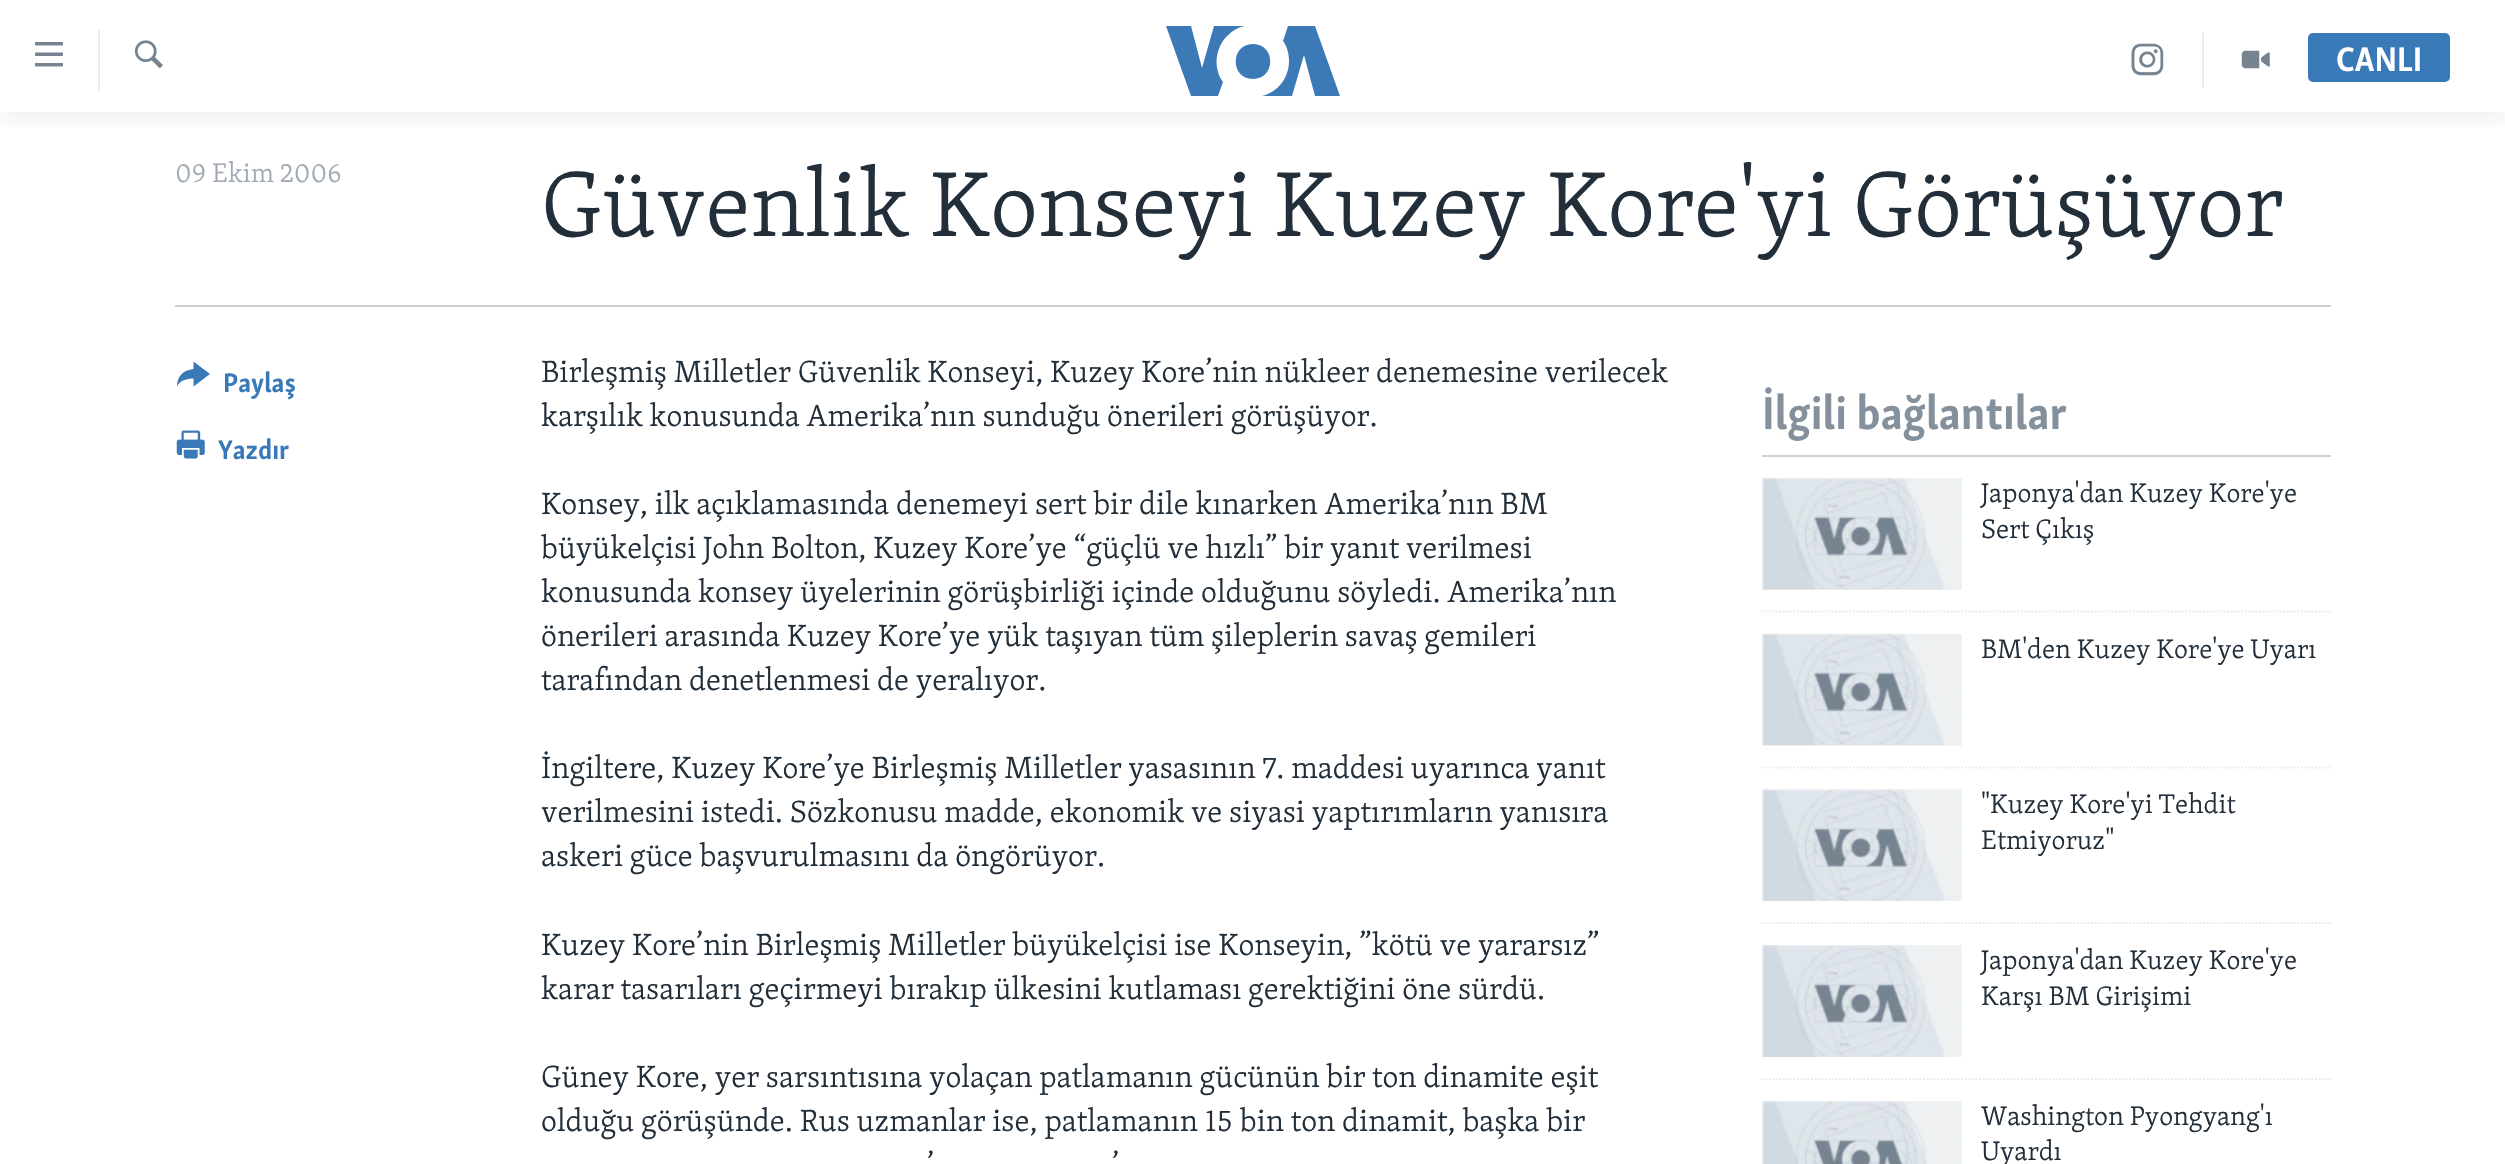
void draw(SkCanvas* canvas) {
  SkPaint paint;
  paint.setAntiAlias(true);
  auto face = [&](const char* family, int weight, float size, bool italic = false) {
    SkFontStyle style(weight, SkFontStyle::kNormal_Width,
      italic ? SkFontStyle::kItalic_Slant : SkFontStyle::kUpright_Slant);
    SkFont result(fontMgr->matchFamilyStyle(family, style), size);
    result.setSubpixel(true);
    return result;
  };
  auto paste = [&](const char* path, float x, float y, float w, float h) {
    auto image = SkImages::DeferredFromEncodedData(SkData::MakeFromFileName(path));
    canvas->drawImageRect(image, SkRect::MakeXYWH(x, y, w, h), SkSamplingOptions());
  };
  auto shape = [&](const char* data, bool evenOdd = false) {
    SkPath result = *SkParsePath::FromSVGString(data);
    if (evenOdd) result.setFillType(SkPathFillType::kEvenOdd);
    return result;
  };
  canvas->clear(0xffffffff);
  canvas->save();
  canvas->clipRect(SkRect::MakeXYWH(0, 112, 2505, 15));
  paint.setColor(0x1a000000);
  paint.setMaskFilter(SkMaskFilter::MakeBlur(kNormal_SkBlurStyle, 17.5f));
  canvas->drawRect(SkRect::MakeXYWH(0, 0, 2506, 112), paint);
  paint.setMaskFilter(nullptr);
  canvas->restore();
  paste("img/1.png", 35, 42, 28, 25);
  paint.setColor(0xffebebeb);
  canvas->drawRect(SkRect::MakeXYWH(98, 30, 2, 61), paint);
  paste("img/2.png", 134, 40, 29, 29);
  paint.setColor(0xff3b79b7);
  canvas->drawPath(shape("M1223 82L1218 96H1191L1166 26H1191L1202 68L1214 26H1244C1219 33 1209 62 1223 82ZM1253 44C1230 44 1230 79 1253 79C1276 79 1276 44 1253 44ZM1289 61C1289 78 1278 92 1262 96H1292L1304 55L1315 96H1340L1315 26H1288L1283 41C1287 46 1289 54 1289 61Z"), paint);
  paint.setColor(0xffebebeb);
  canvas->drawRect(SkRect::MakeXYWH(2202, 33, 2, 55), paint);
  paste("img/3.png", 2131, 43, 33, 33);
  paste("img/4.png", 2241, 50, 29, 19);
  paint.setColor(0xff3a79b7);
  canvas->drawRoundRect(SkRect::MakeXYWH(2308, 33, 142, 49), 5, 5, paint);
  paint.setColor(0xffcbd1d6);
  canvas->drawRect(SkRect::MakeXYWH(175, 305, 2156, 2), paint);
  paint.setColor(0xff3a79b7);
  canvas->drawPath(shape("M177 386.5C177 376.5 183 370 193.5 369V361.5L210 374L193.5 386.5V378.5C187 378.5 179.5 380.5 177 386.5Z"), paint);
  paste("img/5.png", 176, 430, 29, 29);
  paint.setColor(0xffcbd1d6);
  canvas->drawRect(SkRect::MakeXYWH(1762, 455, 569, 2), paint);
  paint.setColor(0xfff6f7f8);
  canvas->drawRect(SkRect::MakeXYWH(1762, 478, 200, 112), paint);
  paste("img/6.png", 1762, 478, 200, 112);
  paint.setStroke(true);
  paint.setStrokeWidth(1.8f);
  paint.setColor(0xffe8eaec);
  paint.setPathEffect(SkDashPathEffect::Make({{1.75f, 1.75f}}, 0));
  canvas->drawPath(shape("M1762 611.5H2331"), paint);
  paint.setPathEffect(nullptr);
  paint.setStroke(false);
  paint.setColor(0xfff6f7f8);
  canvas->drawRect(SkRect::MakeXYWH(1762, 634, 200, 112), paint);
  paste("img/7.png", 1762, 633, 200, 113);
  paint.setStroke(true);
  paint.setColor(0xffe8eaec);
  paint.setPathEffect(SkDashPathEffect::Make({{1.75f, 1.75f}}, 0));
  canvas->drawPath(shape("M1762 767.5H2331"), paint);
  paint.setPathEffect(nullptr);
  paint.setStroke(false);
  paint.setColor(0xfff6f7f8);
  canvas->drawRect(SkRect::MakeXYWH(1762, 789, 200, 112), paint);
  paste("img/8.png", 1762, 789, 200, 112);
  paint.setStroke(true);
  paint.setColor(0xffe8eaec);
  paint.setPathEffect(SkDashPathEffect::Make({{1.75f, 1.75f}}, 0));
  canvas->drawPath(shape("M1762 923H2331"), paint);
  paint.setPathEffect(nullptr);
  paint.setStroke(false);
  paint.setColor(0xfff6f7f8);
  canvas->drawRect(SkRect::MakeXYWH(1762, 945, 200, 112), paint);
  paste("img/9.png", 1762, 945, 200, 112);
  paint.setStroke(true);
  paint.setColor(0xffe8eaec);
  paint.setPathEffect(SkDashPathEffect::Make({{1.75f, 1.75f}}, 0));
  canvas->drawPath(shape("M1762 1079H2331"), paint);
  paint.setPathEffect(nullptr);
  paint.setStroke(false);
  paint.setColor(0xfff6f7f8);
  canvas->drawRect(SkRect::MakeXYWH(1762, 1101, 200, 63), paint);
  paste("img/10.png", 1762, 1101, 200, 63);
  auto f0 = face("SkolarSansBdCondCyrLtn", 700, 35);
  paint.setColor(0xffffffff);
  canvas->drawString("CANLI", 2336, 71, f0, paint);
  auto f1 = face("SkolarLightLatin", 300, 27.5f);
  paint.setColor(0xffa1aab4);
  canvas->drawString("09 Ekim 2006", 175, 182, f1, paint);
  auto f2 = face("SkolarLightLatin", 300, 94.5f);
  paint.setColor(0xff222f3a);
  canvas->drawString("Güvenlik Konseyi Kuzey Kore'yi Görüşüyor", 541, 236, f2, paint);
  auto f3 = face("SkolarSansBdCondCyrLtn", 700, 27.5f);
  paint.setColor(0xff3a79b7);
  canvas->drawString("Paylaş", 223, 392, f3, paint);
  canvas->drawString("Yazdır", 218, 459, f3, paint);
  auto f4 = face("SkolarLightLatin", 300, 31.5f);
  paint.setColor(0xff222f3a);
  {
    const struct { const char* s; float x, y; } items[] = {
      {"Birleşmiş Milletler Güvenlik Konseyi, Kuzey Kore’nin nükleer denemesine verilecek", 541, 382},
      {"karşılık konusunda Amerika’nın sunduğu önerileri görüşüyor.", 541, 426},
      {"Konsey, ilk açıklamasında denemeyi sert bir dile kınarken Amerika’nın BM", 541, 514},
      {"büyükelçisi John Bolton, Kuzey Kore’ye “güçlü ve hızlı” bir yanıt verilmesi", 541, 558},
      {"konusunda konsey üyelerinin görüşbirliği içinde olduğunu söyledi. Amerika’nın", 541, 602},
      {"önerileri arasında Kuzey Kore’ye yük taşıyan tüm şileplerin savaş gemileri", 541, 646},
      {"tarafından denetlenmesi de yeralıyor.", 541, 690},
      {"İngiltere, Kuzey Kore’ye Birleşmiş Milletler yasasının 7. maddesi uyarınca yanıt", 541, 778},
      {"verilmesini istedi. Sözkonusu madde, ekonomik ve siyasi yaptırımların yanısıra", 541, 822},
      {"askeri güce başvurulmasını da öngörüyor.", 541, 866},
      {"Kuzey Kore’nin Birleşmiş Milletler büyükelçisi ise Konseyin, ”kötü ve yararsız”", 541, 955},
      {"karar tasarıları geçirmeyi bırakıp ülkesini kutlaması gerektiğini öne sürdü.", 541, 999},
      {"Güney Kore, yer sarsıntısına yolaçan patlamanın gücünün bir ton dinamite eşit", 541, 1087},
      {"olduğu görüşünde. Rus uzmanlar ise, patlamanın 15 bin ton dinamit, başka bir", 541, 1131},
      {"’", 927, 1175},
      {"’", 1112, 1175},
    };
    for (auto [s, x, y] : items) {
      canvas->drawString(s, x, y, f4, paint);
    }
  }
  auto f5 = face("SkolarSansBdCondCyrLtn", 700, 47.25f);
  paint.setColor(0xff84919d);
  canvas->drawString("İlgili bağlantılar", 1762, 429, f5, paint);
  paint.setColor(0xff222f3a);
  {
    const struct { const char* s; float x, y; } items[] = {
      {"Japonya'dan Kuzey Kore'ye", 1981, 502},
      {"Sert Çıkış", 1981, 538},
      {"BM'den Kuzey Kore'ye Uyarı", 1981, 658},
      {"\"Kuzey Kore'yi Tehdit", 1981, 813},
      {"Etmiyoruz\"", 1981, 849},
      {"Japonya'dan Kuzey Kore'ye", 1981, 969},
      {"Karşı BM Girişimi", 1981, 1005},
      {"Washington Pyongyang'ı", 1981, 1125},
      {"Uyardı", 1981, 1160},
    };
    for (auto [s, x, y] : items) {
      canvas->drawString(s, x, y, f1, paint);
    }
  }
}
